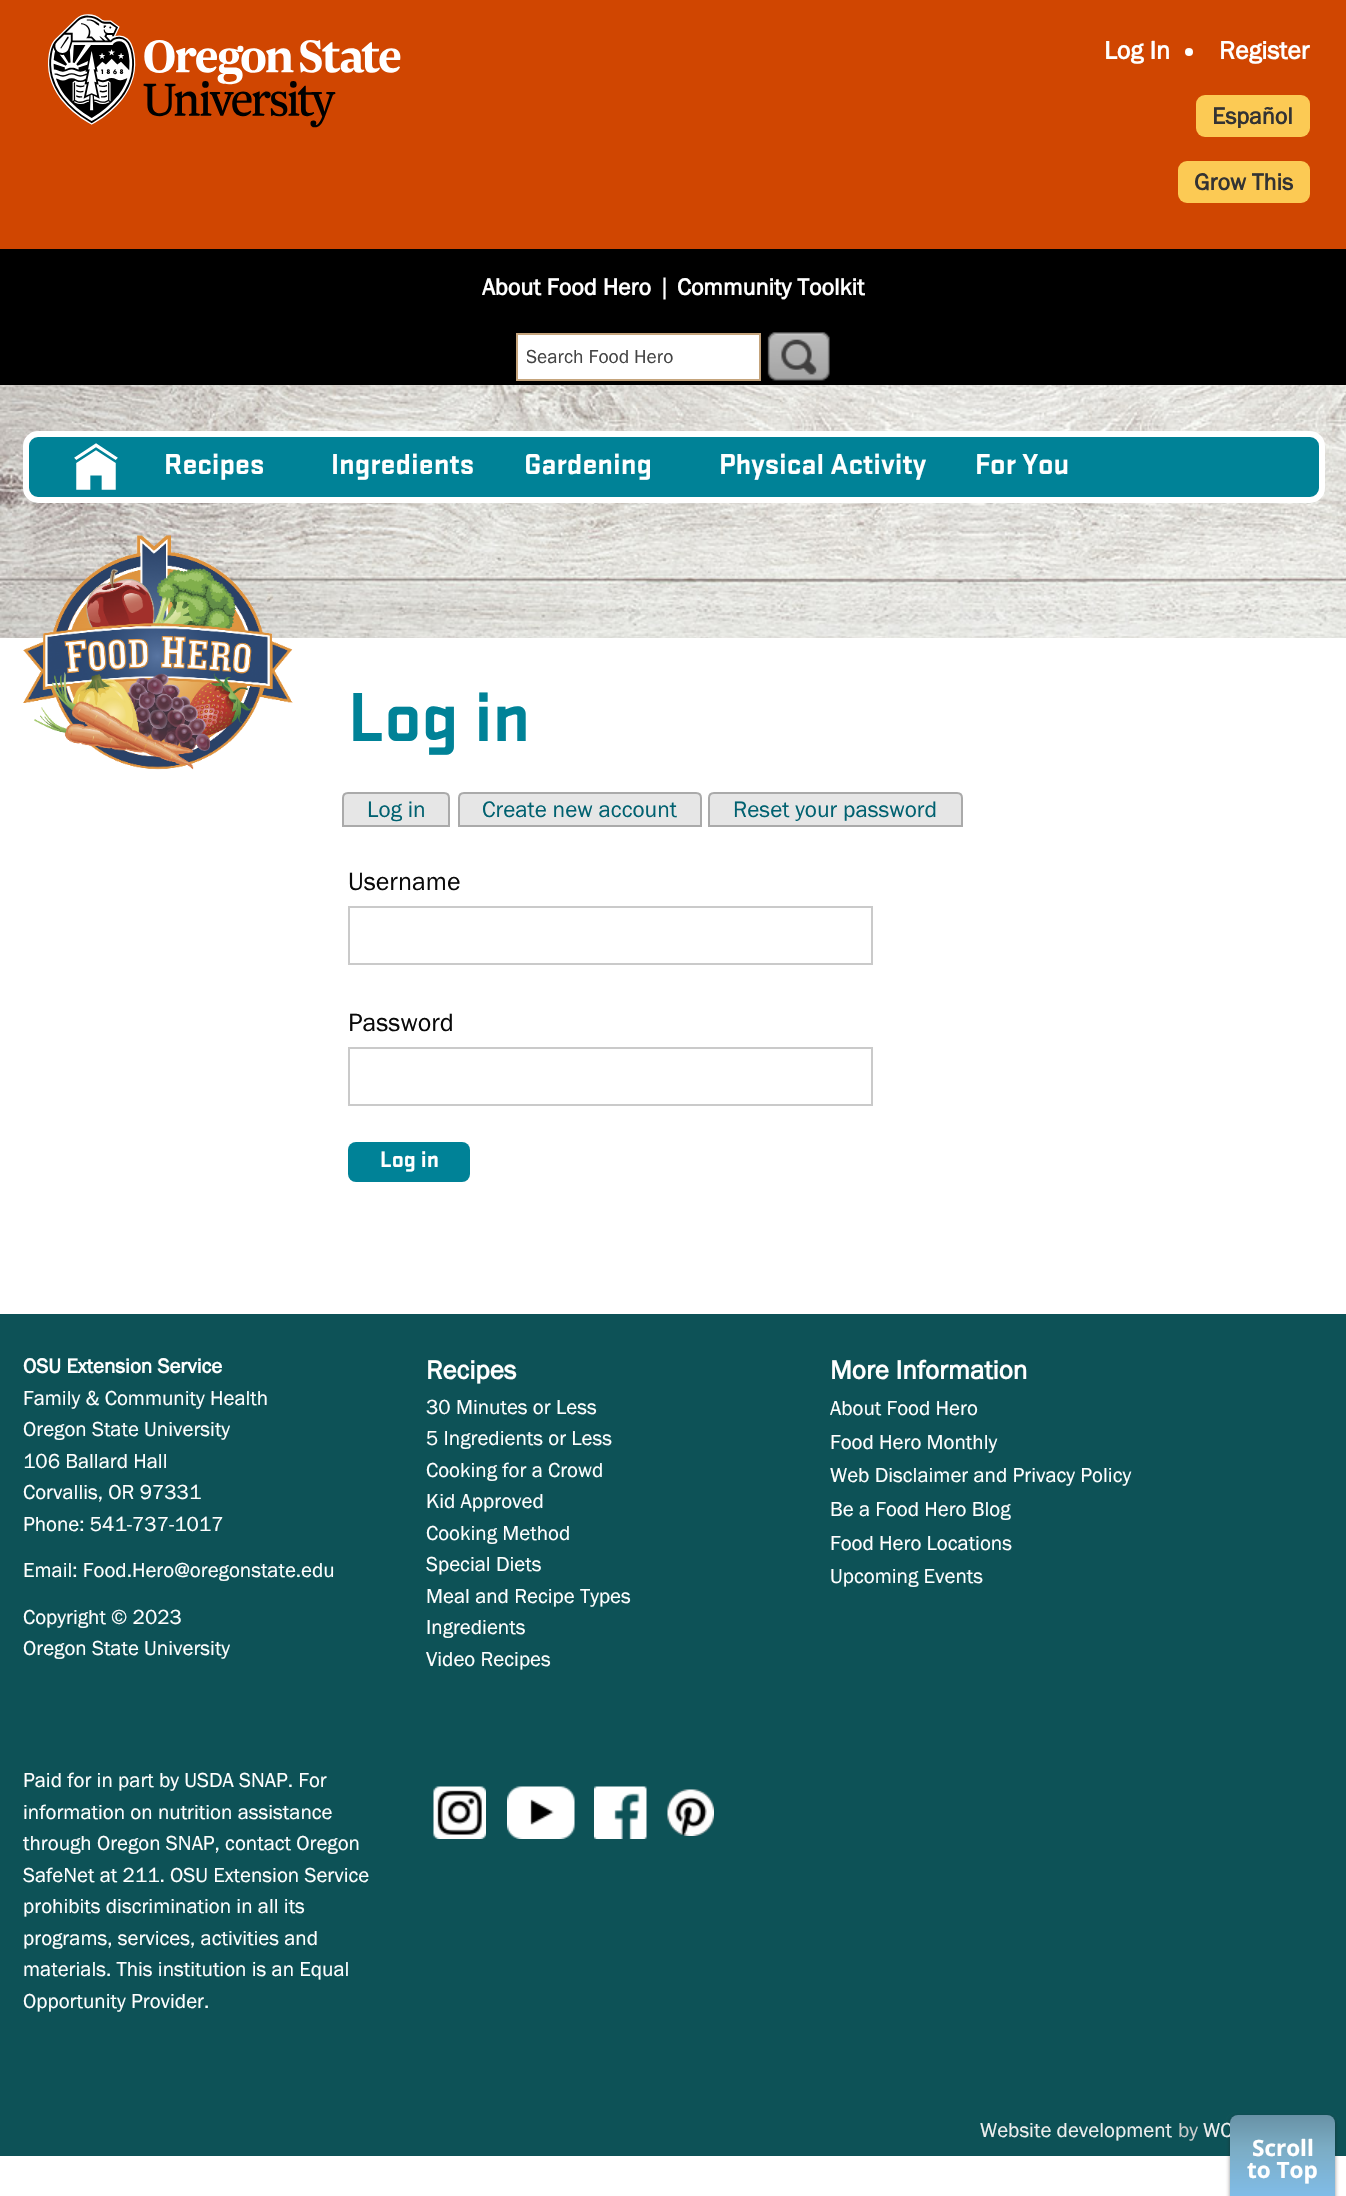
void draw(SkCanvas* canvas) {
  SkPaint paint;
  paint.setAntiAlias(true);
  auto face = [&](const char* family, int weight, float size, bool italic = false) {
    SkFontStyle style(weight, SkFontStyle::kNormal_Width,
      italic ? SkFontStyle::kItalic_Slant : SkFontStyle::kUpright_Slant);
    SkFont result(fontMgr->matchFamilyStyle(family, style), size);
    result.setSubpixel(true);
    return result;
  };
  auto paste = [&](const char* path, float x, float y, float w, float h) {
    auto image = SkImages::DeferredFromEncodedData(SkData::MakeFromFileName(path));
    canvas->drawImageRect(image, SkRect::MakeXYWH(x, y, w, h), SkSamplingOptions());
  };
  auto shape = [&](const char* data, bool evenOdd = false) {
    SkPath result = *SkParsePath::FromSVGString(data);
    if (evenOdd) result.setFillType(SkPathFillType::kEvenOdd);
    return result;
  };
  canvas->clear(0xffffffff);
  paint.setColor(0xffd04601);
  canvas->drawRect(SkRect::MakeXYWH(0, 0, 1346, 249), paint);
  paste("img/1.png", 48, 14, 353, 114);
  paint.setColor(0xffffffff);
  canvas->drawCircle(1189, 52, 4, paint);
  paint.setColor(0xfffcca54);
  canvas->drawRoundRect(SkRect::MakeXYWH(1196, 95, 114, 42), 9, 9, paint);
  canvas->drawRoundRect(SkRect::MakeXYWH(1178, 161, 132, 42), 9, 9, paint);
  paint.setColor(0xff000000);
  canvas->drawRect(SkRect::MakeXYWH(0, 249, 1346, 136), paint);
  paint.setColor(0xffffffff);
  canvas->drawRect(SkRect::MakeXYWH(517, 334, 243, 46), paint);
  paint.setStroke(true);
  paint.setStrokeWidth(2);
  paint.setColor(0xffc5a47c);
  canvas->drawRect(SkRect::MakeXYWH(517, 334, 243, 46), paint);
  paste("img/2.png", 767, 332, 63, 49);
  paste("img/3.png", 0, 385, 1346, 253);
  paint.setStroke(false);
  paint.setColor(0xff008297);
  canvas->drawRoundRect(SkRect::MakeXYWH(26, 434, 1296, 66), 12, 12, paint);
  paint.setStroke(true);
  paint.setStrokeWidth(6);
  paint.setColor(0xffffffff);
  canvas->drawRoundRect(SkRect::MakeXYWH(26, 434, 1296, 66), 12, 12, paint);
  paste("img/4.png", 74, 443, 44, 47);
  paste("img/5.png", 23, 535, 270, 235);
  paint.setStroke(false);
  paint.setColor(0xffe6e6e6);
  canvas->drawPath(shape("M348 793H444C447 793 449 795 449 798V826H343V798C343 795 345 793 348 793Z"), paint);
  paint.setStroke(true);
  paint.setStrokeWidth(2);
  paint.setColor(0xffaaaaaa);
  canvas->drawPath(shape("M348 793H444C447 793 449 795 449 798V826H343V798C343 795 345 793 348 793Z"), paint);
  paint.setStroke(false);
  paint.setColor(0xffe6e6e6);
  canvas->drawPath(shape("M464 793H696C699 793 701 795 701 798V826H459V798C459 795 461 793 464 793Z"), paint);
  paint.setStroke(true);
  paint.setColor(0xffaaaaaa);
  canvas->drawPath(shape("M464 793H696C699 793 701 795 701 798V826H459V798C459 795 461 793 464 793Z"), paint);
  paint.setStroke(false);
  paint.setColor(0xffe6e6e6);
  canvas->drawPath(shape("M714 793H957C960 793 962 795 962 798V826H709V798C709 795 711 793 714 793Z"), paint);
  paint.setStroke(true);
  paint.setColor(0xffaaaaaa);
  canvas->drawPath(shape("M714 793H957C960 793 962 795 962 798V826H709V798C709 795 711 793 714 793Z"), paint);
  paint.setColor(0xffcacaca);
  canvas->drawRect(SkRect::MakeXYWH(349, 907, 523, 57), paint);
  canvas->drawRect(SkRect::MakeXYWH(349, 1048, 523, 57), paint);
  paint.setStroke(false);
  paint.setColor(0xff008297);
  canvas->drawRoundRect(SkRect::MakeXYWH(348, 1142, 122, 40), 8, 8, paint);
  paint.setColor(0xff0d5257);
  canvas->drawRect(SkRect::MakeXYWH(0, 1314, 1346, 842), paint);
  paste("img/6.png", 433, 1786, 53, 53);
  paste("img/7.png", 507, 1786, 68, 53);
  paste("img/8.png", 594, 1786, 53, 53);
  paste("img/9.png", 667, 1789, 47, 47);
  paint.setColor(0x80221919);
  paint.setMaskFilter(SkMaskFilter::MakeBlur(kNormal_SkBlurStyle, 2));
  canvas->drawRoundRect(SkRect::MakeXYWH(1230, 2117, 105, 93), 8, 8, paint);
  paint.setMaskFilter(nullptr);
  auto f0 = face("Franklin Gothic", 700, 26);
  paint.setColor(0xffffffff);
  canvas->drawString("Log In", 1104, 59, f0, paint);
  canvas->drawString("Register", 1219, 59, f0, paint);
  auto f1 = face("Franklin Gothic", 700, 24);
  paint.setColor(0xff333333);
  canvas->drawString("Español", 1212, 124, f1, paint);
  canvas->drawString("Grow This", 1194, 190, f1, paint);
  paint.setColor(0xffffffff);
  canvas->drawString("About Food Hero", 482, 295, f1, paint);
  auto f2 = face("Franklin Gothic", 400, 26);
  canvas->drawString("|", 658, 295, f2, paint);
  canvas->drawString("Community Toolkit", 677, 295, f1, paint);
  canvas->save();
  canvas->clipRect(SkRect::MakeXYWH(527, 345, 223, 23));
  auto f3 = face("Franklin Gothic", 400, 19.5f);
  paint.setColor(0xff444444);
  canvas->drawString("Search Food Hero", 526, 363, f3, paint);
  canvas->restore();
  auto f4 = face("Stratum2", 700, 30);
  paint.setColor(0xffffffff);
  {
    const struct { const char* s; float x, y; } items[] = {
      {"Recipes", 164, 474},
      {"Ingredients", 331, 474},
      {"Gardening", 524, 474},
      {"Physical Activity", 719, 474},
      {"For You", 975, 474},
    };
    for (auto [s, x, y] : items) {
      canvas->drawString(s, x, y, f4, paint);
    }
  }
  auto f5 = face("Stratum2", 700, 72);
  paint.setColor(0xff008297);
  canvas->drawString("Log in", 348, 741, f5, paint);
  auto f6 = face("Franklin Gothic", 400, 23.25f);
  paint.setColor(0xff006170);
  {
    const struct { const char* s; float x, y; } items[] = {
      {"Log in", 367, 817},
      {"Create new account", 482, 817},
      {"Reset your password", 733, 817},
    };
    for (auto [s, x, y] : items) {
      canvas->drawString(s, x, y, f6, paint);
    }
  }
  paint.setColor(0xff0a0a0a);
  canvas->drawString("Username", 348, 890, f2, paint);
  canvas->drawString("Password", 348, 1031, f2, paint);
  auto f7 = face("Stratum2", 700, 23.25f);
  paint.setColor(0xffffffff);
  canvas->drawString("Log in", 380, 1167, f7, paint);
  auto f8 = face("Franklin Gothic", 700, 21);
  canvas->drawString("OSU Extension Service", 23, 1373, f8, paint);
  auto f9 = face("Franklin Gothic", 400, 21);
  {
    const struct { const char* s; float x, y; } items[] = {
      {"Family & Community Health", 23, 1405},
      {"Oregon State University", 23, 1436},
      {"106 Ballard Hall", 23, 1468},
      {"Corvallis, OR 97331", 23, 1499},
      {"Phone: 541-737-1017", 23, 1531},
      {"Email: Food.Hero@oregonstate.edu", 23, 1577},
      {"Copyright © 2023", 23, 1624},
      {"Oregon State University", 23, 1655},
    };
    for (auto [s, x, y] : items) {
      canvas->drawString(s, x, y, f9, paint);
    }
  }
  auto f10 = face("Franklin Gothic", 700, 27);
  canvas->drawString("Recipes", 426, 1379, f10, paint);
  {
    const struct { const char* s; float x, y; } items[] = {
      {"30 Minutes or Less", 426, 1414},
      {"5 Ingredients or Less", 426, 1445},
      {"Cooking for a Crowd", 426, 1477},
      {"Kid Approved", 426, 1508},
      {"Cooking Method", 426, 1540},
      {"Special Diets", 426, 1571},
      {"Meal and Recipe Types", 426, 1603},
      {"Ingredients", 426, 1634},
      {"Video Recipes", 426, 1666},
    };
    for (auto [s, x, y] : items) {
      canvas->drawString(s, x, y, f9, paint);
    }
  }
  canvas->drawString("More Information", 830, 1379, f10, paint);
  {
    const struct { const char* s; float x, y; } items[] = {
      {"About Food Hero", 830, 1415},
      {"Food Hero Monthly", 830, 1449},
      {"Web Disclaimer and Privacy Policy", 830, 1482},
      {"Be a Food Hero Blog", 830, 1516},
      {"Food Hero Locations", 830, 1550},
      {"Upcoming Events", 830, 1583},
      {"Paid for in part by USDA SNAP. For", 23, 1787},
      {"information on nutrition assistance", 23, 1819},
      {"through Oregon SNAP, contact Oregon", 23, 1850},
      {"SafeNet at 211. OSU Extension Service", 23, 1882},
      {"prohibits discrimination in all its", 23, 1913},
      {"programs, services, activities and", 23, 1945},
      {"materials. This institution is an Equal", 23, 1976},
      {"Opportunity Provider.", 23, 2008},
    };
    for (auto [s, x, y] : items) {
      canvas->drawString(s, x, y, f9, paint);
    }
  }
  paint.setColor(0xffeeeeee);
  canvas->drawString("Website development", 980, 2137, f9, paint);
  paint.setColor(0xffcccccc);
  canvas->drawString("by", 1178, 2137, f9, paint);
  paint.setColor(0xffeeeeee);
  canvas->drawString("WC", 1203, 2137, f9, paint);
  {
    const SkColor colors[] = {0xff6892a6, 0xff7bacc4, 0xff82c1f2};
    const float stops[] = {0, 0.34f, 1};
    const SkPoint ends[] = {{1283, 2115}, {1283, 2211}};
    paint.setShader(SkGradientShader::MakeLinear(ends, colors, stops, 3, SkTileMode::kClamp));
    paint.setAlpha(255);
  }
  canvas->drawRoundRect(SkRect::MakeXYWH(1230, 2115, 105, 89), 8, 8, paint);
  auto f11 = face("Open Sans", 700, 22.5f);
  paint.setShader(nullptr);
  paint.setColor(0xffffffff);
  canvas->drawString("Scroll", 1252, 2156, f11, paint);
  canvas->drawString("to Top", 1247, 2178, f11, paint);
}
